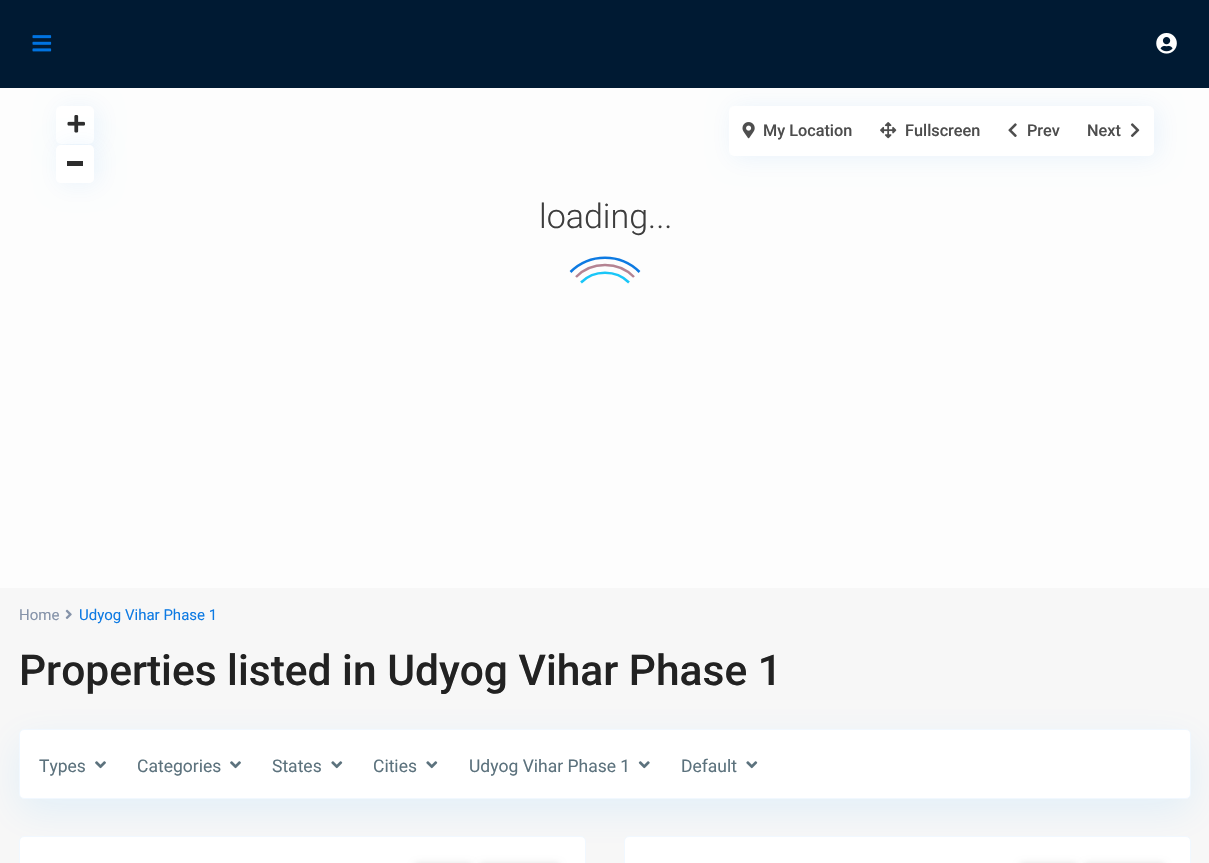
void draw(SkCanvas* canvas) {
  SkPaint paint;
  paint.setAntiAlias(true);
  auto face = [&](const char* family, int weight, float size, bool italic = false) {
    SkFontStyle style(weight, SkFontStyle::kNormal_Width,
      italic ? SkFontStyle::kItalic_Slant : SkFontStyle::kUpright_Slant);
    SkFont result(fontMgr->matchFamilyStyle(family, style), size);
    result.setSubpixel(true);
    return result;
  };
  auto paste = [&](const char* path, float x, float y, float w, float h) {
    auto image = SkImages::DeferredFromEncodedData(SkData::MakeFromFileName(path));
    canvas->drawImageRect(image, SkRect::MakeXYWH(x, y, w, h), SkSamplingOptions());
  };
  auto shape = [&](const char* data, bool evenOdd = false) {
    SkPath result = *SkParsePath::FromSVGString(data);
    if (evenOdd) result.setFillType(SkPathFillType::kEvenOdd);
    return result;
  };
  canvas->clear(0xfff7f7f7);
  paint.setColor(0xfffdfdfd);
  canvas->drawRect(SkRect::MakeXYWH(0, 88, 1209, 500), paint);
  paint.setColor(0x14006ee1);
  paint.setMaskFilter(SkMaskFilter::MakeBlur(kNormal_SkBlurStyle, 12.5f));
  canvas->drawRoundRect(SkRect::MakeXYWH(60, 108, 38, 37), 5, 5, paint);
  paint.setMaskFilter(nullptr);
  paint.setMaskFilter(SkMaskFilter::MakeBlur(kNormal_SkBlurStyle, 12.5f));
  canvas->drawRoundRect(SkRect::MakeXYWH(733, 108, 425, 50), 5, 5, paint);
  paint.setMaskFilter(nullptr);
  paint.setColor(0xff001a33);
  canvas->drawRect(SkRect::MakeXYWH(0, 0, 1209, 88), paint);
  paste("img/1.png", 32, 35, 20, 17);
  paste("img/2.png", 1156, 33, 21, 21);
  paint.setColor(0xffffffff);
  canvas->drawRoundRect(SkRect::MakeXYWH(56, 106, 38, 38), 5, 5, paint);
  paste("img/3.png", 67, 115, 18, 18);
  canvas->save();
  canvas->clipPath(shape("M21 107H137V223H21ZM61 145H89C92 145 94 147 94 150V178C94 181 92 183 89 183H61C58 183 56 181 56 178V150C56 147 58 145 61 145Z", true), true);
  paint.setColor(0x14006ee1);
  paint.setMaskFilter(SkMaskFilter::MakeBlur(kNormal_SkBlurStyle, 12.5f));
  canvas->drawRoundRect(SkRect::MakeXYWH(60, 146, 38, 38), 5, 5, paint);
  paint.setMaskFilter(nullptr);
  canvas->restore();
  paint.setColor(0xf2ffffff);
  canvas->drawRoundRect(SkRect::MakeXYWH(56, 145, 38, 38), 5, 5, paint);
  paint.setColor(0xff2d2d2d);
  canvas->drawRect(SkRect::MakeXYWH(67, 161, 16, 5), paint);
  paint.setColor(0xffffffff);
  canvas->drawRoundRect(SkRect::MakeXYWH(729, 106, 425, 50), 5, 5, paint);
  paste("img/4.png", 742, 122, 13, 17);
  paste("img/5.png", 880, 122, 17, 17);
  paste("img/6.png", 1008, 123, 9, 14);
  paste("img/7.png", 1130, 123, 10, 14);
  paint.setStroke(true);
  paint.setStrokeWidth(2.5f);
  paint.setColor(0xff0d7ae2);
  canvas->drawPath(shape("M570.5 272C589.5 253 620.5 253 639.5 272"), paint);
  paint.setColor(0xffb48392);
  canvas->drawPath(shape("M576 277C591.5 261 618.5 261 634 277"), paint);
  paint.setColor(0xff19c6f8);
  canvas->drawPath(shape("M581 282.5C594 269.5 616 269.5 629 282.5"), paint);
  paste("img/8.png", 65, 609, 7, 10);
  paint.setStroke(false);
  paint.setColor(0x170798ff);
  paint.setMaskFilter(SkMaskFilter::MakeBlur(kNormal_SkBlurStyle, 19.5f));
  canvas->drawRoundRect(SkRect::MakeXYWH(19, 741, 1172, 70), 5, 5, paint);
  paint.setMaskFilter(nullptr);
  paint.setColor(0xffffffff);
  canvas->drawRoundRect(SkRect::MakeXYWH(19.5f, 729.5f, 1171, 69), 4.5f, 4.5f, paint);
  paint.setStroke(true);
  paint.setStrokeWidth(1);
  paint.setColor(0xfff1f8ff);
  canvas->drawRoundRect(SkRect::MakeXYWH(19.5f, 729.5f, 1171, 69), 4.5f, 4.5f, paint);
  paste("img/9.png", 95, 761, 11, 8);
  paste("img/9.png", 230, 761, 11, 8);
  paste("img/10.png", 331, 761, 12, 8);
  paste("img/10.png", 426, 761, 12, 8);
  paste("img/11.png", 638, 761, 12, 8);
  paste("img/10.png", 746, 761, 12, 8);
  paint.setStroke(false);
  paint.setColor(0xffffffff);
  canvas->drawRoundRect(SkRect::MakeXYWH(19.5f, 836.5f, 566, 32), 4.5f, 4.5f, paint);
  paint.setStroke(true);
  paint.setColor(0xfff1f8ff);
  canvas->drawRoundRect(SkRect::MakeXYWH(19.5f, 836.5f, 566, 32), 4.5f, 4.5f, paint);
  paint.setStroke(false);
  paint.setColor(0x1a000000);
  paint.setMaskFilter(SkMaskFilter::MakeBlur(kNormal_SkBlurStyle, 3));
  canvas->drawRoundRect(SkRect::MakeXYWH(414, 863, 59, 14), 5, 5, paint);
  paint.setMaskFilter(nullptr);
  paint.setMaskFilter(SkMaskFilter::MakeBlur(kNormal_SkBlurStyle, 3));
  canvas->drawRoundRect(SkRect::MakeXYWH(479, 863, 81, 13), 4, 4, paint);
  paint.setMaskFilter(nullptr);
  paint.setColor(0xffffffff);
  canvas->drawRoundRect(SkRect::MakeXYWH(624.5f, 836.5f, 566, 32), 4.5f, 4.5f, paint);
  paint.setStroke(true);
  paint.setColor(0xfff1f8ff);
  canvas->drawRoundRect(SkRect::MakeXYWH(624.5f, 836.5f, 566, 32), 4.5f, 4.5f, paint);
  paint.setStroke(false);
  paint.setColor(0x1a000000);
  paint.setMaskFilter(SkMaskFilter::MakeBlur(kNormal_SkBlurStyle, 3));
  canvas->drawRoundRect(SkRect::MakeXYWH(1019, 863, 59, 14), 5, 5, paint);
  paint.setMaskFilter(nullptr);
  paint.setMaskFilter(SkMaskFilter::MakeBlur(kNormal_SkBlurStyle, 3));
  canvas->drawRoundRect(SkRect::MakeXYWH(1084, 863, 81, 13), 4, 4, paint);
  paint.setMaskFilter(nullptr);
  auto f0 = face("Roboto", 500, 16.25f);
  paint.setColor(0xff4d4d4d);
  {
    const struct { const char* s; float x, y; } items[] = {
      {"My Location", 763, 136},
      {"Fullscreen", 905, 136},
      {"Prev", 1027, 136},
      {"Next", 1087, 136},
    };
    for (auto [s, x, y] : items) {
      canvas->drawString(s, x, y, f0, paint);
    }
  }
  auto f1 = face("Roboto", 300, 34);
  paint.setColor(0xff3d3d3d);
  canvas->drawString("loading...", 539, 228, f1, paint);
  auto f2 = face("Roboto", 400, 15);
  paint.setColor(0xff8593a9);
  canvas->drawString("Home", 19, 620, f2, paint);
  paint.setColor(0xff0d7ae3);
  canvas->drawString("Udyog Vihar Phase 1", 79, 620, f2, paint);
  auto f3 = face("Roboto", 500, 42.5f);
  paint.setColor(0xff222222);
  canvas->drawString("Properties listed in Udyog Vihar Phase 1", 19, 685, f3, paint);
  auto f4 = face("Roboto", 400, 17.5f);
  paint.setColor(0xff5c727d);
  {
    const struct { const char* s; float x, y; } items[] = {
      {"Types", 39, 772},
      {"Categories", 137, 772},
      {"States", 272, 772},
      {"Cities", 373, 772},
      {"Udyog Vihar Phase 1", 469, 772},
      {"Default", 681, 772},
    };
    for (auto [s, x, y] : items) {
      canvas->drawString(s, x, y, f4, paint);
    }
  }
}
